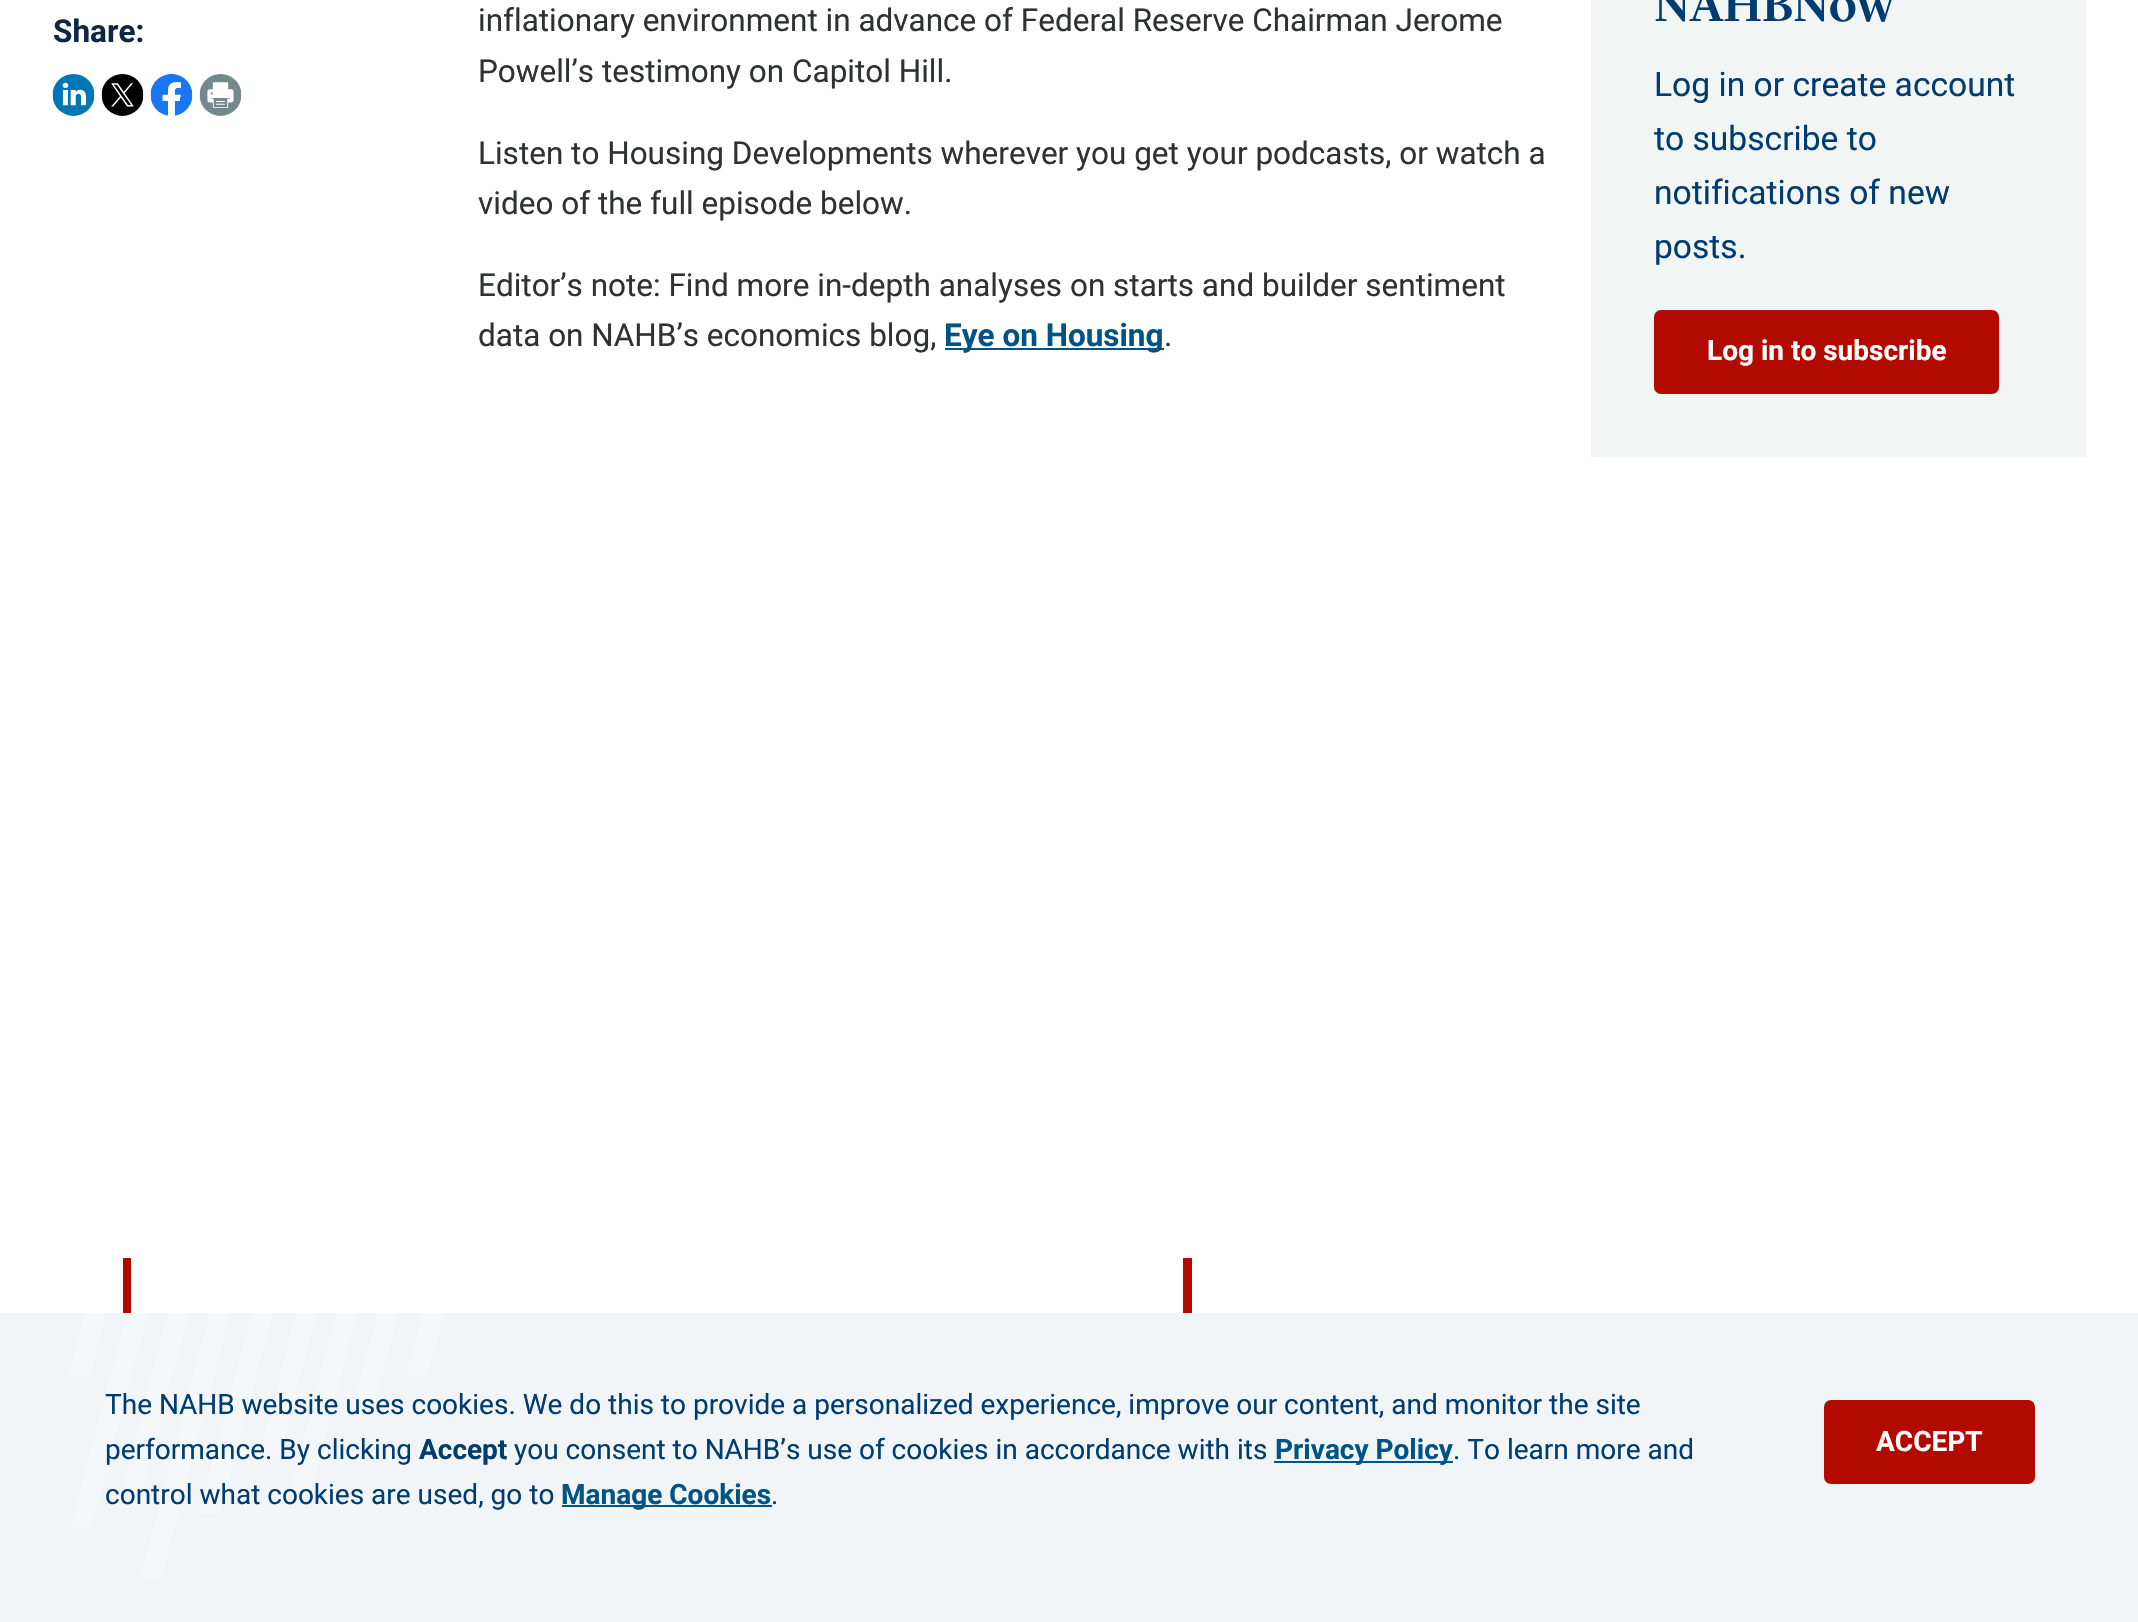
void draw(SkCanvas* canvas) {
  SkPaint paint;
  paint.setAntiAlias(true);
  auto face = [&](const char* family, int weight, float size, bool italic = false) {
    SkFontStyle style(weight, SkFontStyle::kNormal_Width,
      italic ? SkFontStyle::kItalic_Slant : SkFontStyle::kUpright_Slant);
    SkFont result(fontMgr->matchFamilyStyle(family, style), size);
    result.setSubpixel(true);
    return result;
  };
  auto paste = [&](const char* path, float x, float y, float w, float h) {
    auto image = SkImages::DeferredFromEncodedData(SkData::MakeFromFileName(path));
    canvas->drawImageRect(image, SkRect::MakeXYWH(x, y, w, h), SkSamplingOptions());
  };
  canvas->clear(0xffffffff);
  paste("img/1.png", 52, 74, 43, 42);
  paste("img/2.png", 101, 74, 43, 42);
  paste("img/3.png", 150, 74, 43, 42);
  paste("img/4.png", 199, 74, 43, 42);
  paint.setColor(0xff005385);
  canvas->drawRect(SkRect::MakeXYWH(945, 348, 219, 2), paint);
  paint.setColor(0xfff1f5f4);
  canvas->drawRect(SkRect::MakeXYWH(1591, 0, 495, 457), paint);
  paint.setColor(0xffb30a00);
  canvas->drawRoundRect(SkRect::MakeXYWH(1654, 310, 345, 84), 7, 7, paint);
  {
    const struct { float x, y, w, h; SkColor color; } items[] = {
      {123, 1258, 8, 55, 0xffb30a00},
      {1183, 1258, 9, 55, 0xffb30a00},
      {0, 1313, 2138, 309, 0xfff1f5f8},
    };
    for (auto [x, y, w, h, color] : items) {
      paint.setColor(color);
      canvas->drawRect(SkRect::MakeXYWH(x, y, w, h), paint);
    }
  }
  paste("img/5.png", 69, 1313, 374, 265);
  paint.setColor(0xff005385);
  canvas->drawRect(SkRect::MakeXYWH(1274, 1461, 179, 2), paint);
  canvas->drawRect(SkRect::MakeXYWH(562, 1505, 210, 2), paint);
  paint.setColor(0xffb30a00);
  canvas->drawRoundRect(SkRect::MakeXYWH(1824, 1400, 211, 84), 7, 7, paint);
  auto f0 = face("Roboto", 700, 31.5f);
  paint.setColor(0xff0d2747);
  canvas->drawString("Share:", 53, 42, f0, paint);
  auto f1 = face("Roboto", 400, 31.5f);
  paint.setColor(0xff303133);
  {
    const struct { const char* s; float x, y; } items[] = {
      {"inflationary environment in advance of Federal Reserve Chairman Jerome", 478, 31},
      {"Powell’s testimony on Capitol Hill.", 478, 82},
      {"Listen to Housing Developments wherever you get your podcasts, or watch a", 478, 164},
      {"video of the full episode below.", 478, 214},
      {"Editor’s note: Find more in-depth analyses on starts and builder sentiment", 478, 296},
      {"data on NAHB’s economics blog,", 478, 346},
    };
    for (auto [s, x, y] : items) {
      canvas->drawString(s, x, y, f1, paint);
    }
  }
  paint.setColor(0xff005385);
  canvas->drawString("Eye on Housing", 944, 346, f0, paint);
  paint.setColor(0xff303133);
  canvas->drawString(".", 1164, 346, f1, paint);
  auto f2 = face("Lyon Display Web", 500, 49);
  paint.setColor(0xff003b71);
  canvas->drawString("NAHBNow", 1654, 21, f2, paint);
  auto f3 = face("Roboto", 400, 33.6f);
  {
    const struct { const char* s; float x, y; } items[] = {
      {"Log in or create account", 1654, 96},
      {"to subscribe to", 1654, 150},
      {"notifications of new", 1654, 204},
      {"posts.", 1654, 258},
    };
    for (auto [s, x, y] : items) {
      canvas->drawString(s, x, y, f3, paint);
    }
  }
  auto f4 = face("Roboto", 700, 28);
  paint.setColor(0xffffffff);
  canvas->drawString("Log in to subscribe", 1707, 360, f4, paint);
  auto f5 = face("Roboto", 400, 28);
  paint.setColor(0xff003b71);
  canvas->drawString("The NAHB website uses cookies. We do this to provide a personalized experience, improve our content, and monitor the site", 105, 1414, f5, paint);
  canvas->drawString("performance. By clicking", 105, 1459, f5, paint);
  canvas->drawString("Accept", 419, 1459, f4, paint);
  canvas->drawString("you consent to NAHB’s use of cookies in accordance with its", 514, 1459, f5, paint);
  paint.setColor(0xff005385);
  canvas->drawString("Privacy Policy", 1275, 1459, f4, paint);
  paint.setColor(0xff003b71);
  canvas->drawString(". To learn more and", 1453, 1459, f5, paint);
  canvas->drawString("control what cookies are used, go to", 105, 1504, f5, paint);
  paint.setColor(0xff005385);
  canvas->drawString("Manage Cookies", 561, 1504, f4, paint);
  paint.setColor(0xff003b71);
  canvas->drawString(".", 771, 1504, f5, paint);
  paint.setColor(0xffffffff);
  canvas->drawString("ACCEPT", 1876, 1451, f4, paint);
}
